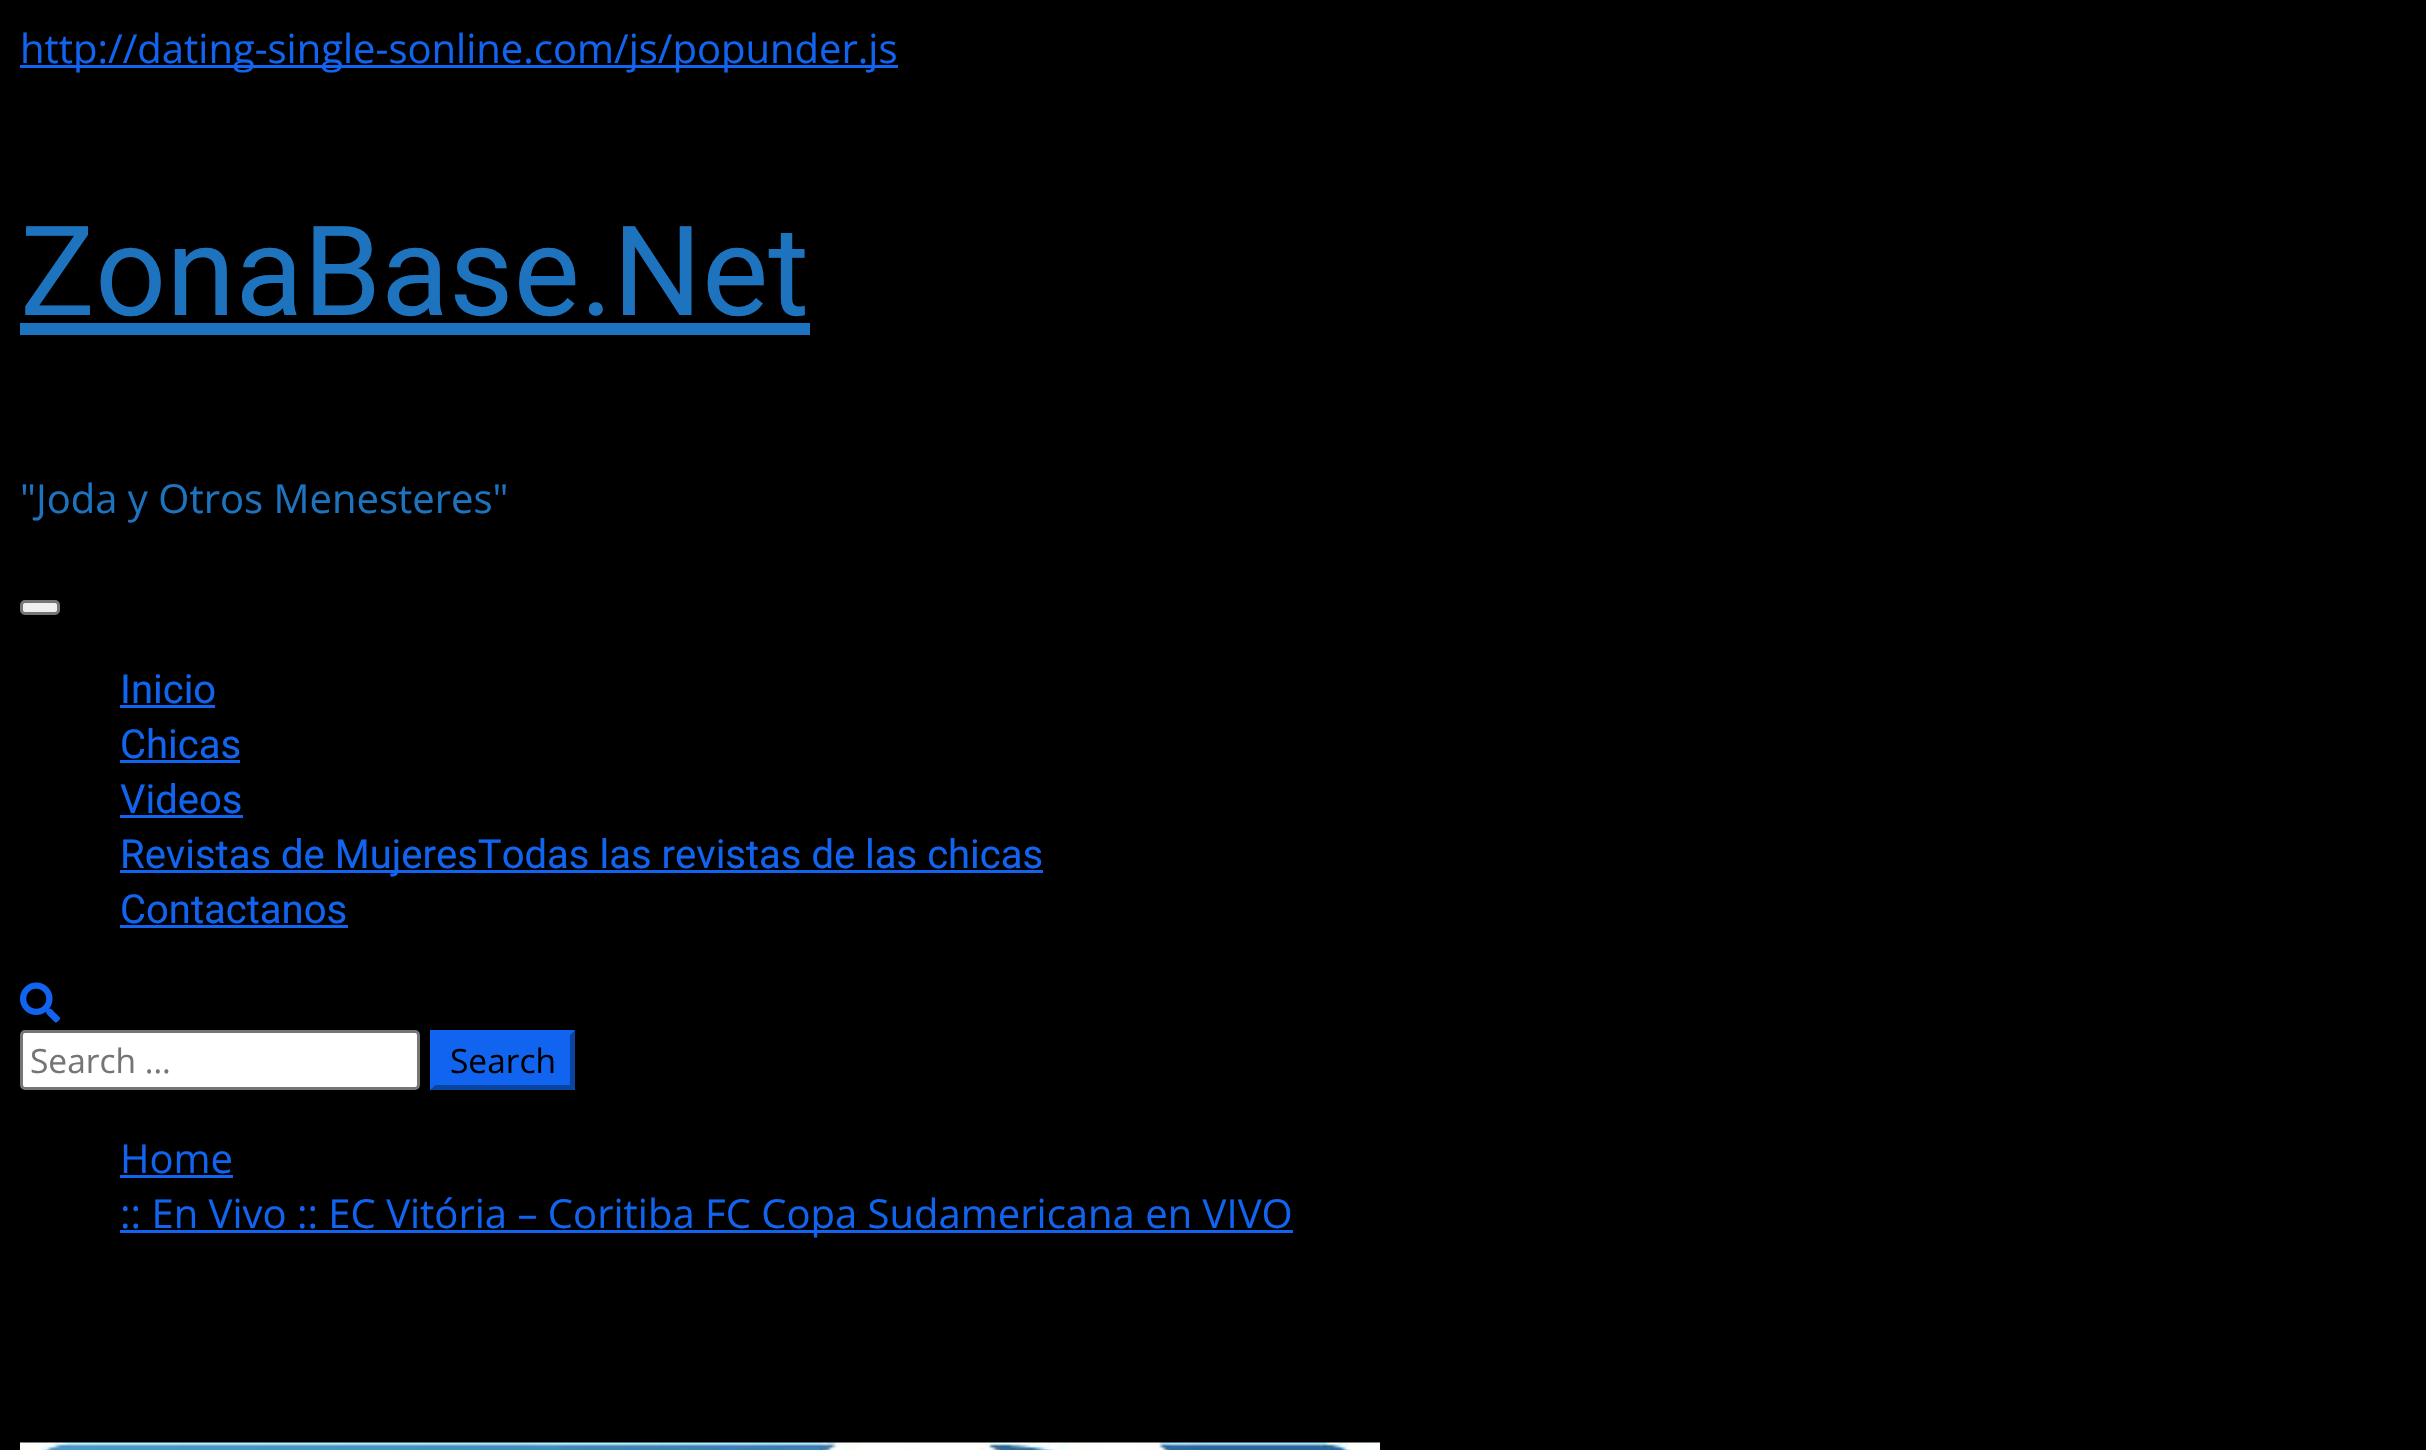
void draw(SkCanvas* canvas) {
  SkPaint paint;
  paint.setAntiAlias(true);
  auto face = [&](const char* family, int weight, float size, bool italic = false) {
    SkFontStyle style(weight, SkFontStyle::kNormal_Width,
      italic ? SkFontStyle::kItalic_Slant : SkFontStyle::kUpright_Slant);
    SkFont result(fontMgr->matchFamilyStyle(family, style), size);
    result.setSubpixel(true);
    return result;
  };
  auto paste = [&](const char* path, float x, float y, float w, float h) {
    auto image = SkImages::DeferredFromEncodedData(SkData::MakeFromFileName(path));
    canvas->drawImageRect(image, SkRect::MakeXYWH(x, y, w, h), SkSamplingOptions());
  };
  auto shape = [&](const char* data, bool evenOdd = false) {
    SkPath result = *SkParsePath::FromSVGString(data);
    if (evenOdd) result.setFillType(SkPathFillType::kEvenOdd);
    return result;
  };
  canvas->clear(0xff000000);
  paint.setColor(0xff1164f0);
  canvas->drawRect(SkRect::MakeXYWH(20, 65, 878, 3), paint);
  paint.setColor(0xff1e73be);
  canvas->drawRect(SkRect::MakeXYWH(20, 323, 790, 12), paint);
  paint.setColor(0xffefefef);
  canvas->drawRoundRect(SkRect::MakeXYWH(21.5f, 601.5f, 37, 12), 3.5f, 3.5f, paint);
  paint.setStroke(true);
  paint.setStrokeWidth(3);
  paint.setColor(0xff767676);
  canvas->drawRoundRect(SkRect::MakeXYWH(21.5f, 601.5f, 37, 12), 3.5f, 3.5f, paint);
  paint.setStroke(false);
  {
    const struct { float x, y, w, h; SkColor color; } items[] = {
      {120, 705, 95, 3, 0xff1164f0},
      {120, 760, 120, 3, 0xff1164f0},
      {120, 815, 123, 3, 0xff1164f0},
      {120, 870, 923, 3, 0xff1164f0},
      {120, 925, 228, 3, 0xff1164f0},
    };
    for (auto [x, y, w, h, color] : items) {
      paint.setColor(color);
      canvas->drawRect(SkRect::MakeXYWH(x, y, w, h), paint);
    }
  }
  paste("img/1.png", 20, 982, 40, 41);
  paint.setColor(0xffffffff);
  canvas->drawRoundRect(SkRect::MakeXYWH(21.5f, 1031.5f, 397, 57), 3.5f, 3.5f, paint);
  paint.setStroke(true);
  paint.setColor(0xff767676);
  canvas->drawRoundRect(SkRect::MakeXYWH(21.5f, 1031.5f, 397, 57), 3.5f, 3.5f, paint);
  paint.setStroke(false);
  paint.setColor(0xff1164f0);
  canvas->drawRect(SkRect::MakeXYWH(430, 1030, 145, 60), paint);
  paint.setColor(0xff0b43a0);
  canvas->drawPath(shape("M575 1030V1090L570 1085V1035Z"), paint);
  canvas->drawPath(shape("M575 1090H430L435 1085H570Z"), paint);
  paint.setColor(0xff1164f0);
  canvas->drawPath(shape("M430 1090V1030L435 1035V1085Z"), paint);
  canvas->drawRect(SkRect::MakeXYWH(120, 1175, 113, 3), paint);
  canvas->drawRect(SkRect::MakeXYWH(120, 1230, 1173, 3), paint);
  paste("img/2.png", 20, 1442, 1360, 8);
  auto f0 = face("Open Sans", 400, 40);
  canvas->drawString("http://dating-single-sonline.com/js/popunder.js", 20, 63, f0, paint);
  auto f1 = face("Roboto", 400, 125);
  paint.setColor(0xff1e73be);
  canvas->drawString("ZonaBase.Net", 20, 315, f1, paint);
  canvas->drawString("\"Joda y Otros Menesteres\"", 20, 513, f0, paint);
  auto f2 = face("Roboto", 400, 40);
  paint.setColor(0xff1164f0);
  {
    const struct { const char* s; float x, y; } items[] = {
      {"Inicio", 120, 703},
      {"Chicas", 120, 758},
      {"Videos", 120, 813},
      {"Revistas de MujeresTodas las revistas de las chicas", 120, 868},
      {"Contactanos", 120, 923},
    };
    for (auto [s, x, y] : items) {
      canvas->drawString(s, x, y, f2, paint);
    }
  }
  auto f3 = face("Open Sans", 400, 33.5f);
  paint.setColor(0xff757575);
  canvas->drawString("Search …", 30, 1073, f3, paint);
  paint.setColor(0xff000000);
  canvas->drawString("Search", 450, 1073, f3, paint);
  paint.setColor(0xff1164f0);
  canvas->drawString("Home", 120, 1173, f0, paint);
  canvas->drawString(":: En Vivo :: EC Vitória – Coritiba FC Copa Sudamericana en VIVO", 120, 1228, f0, paint);
}
